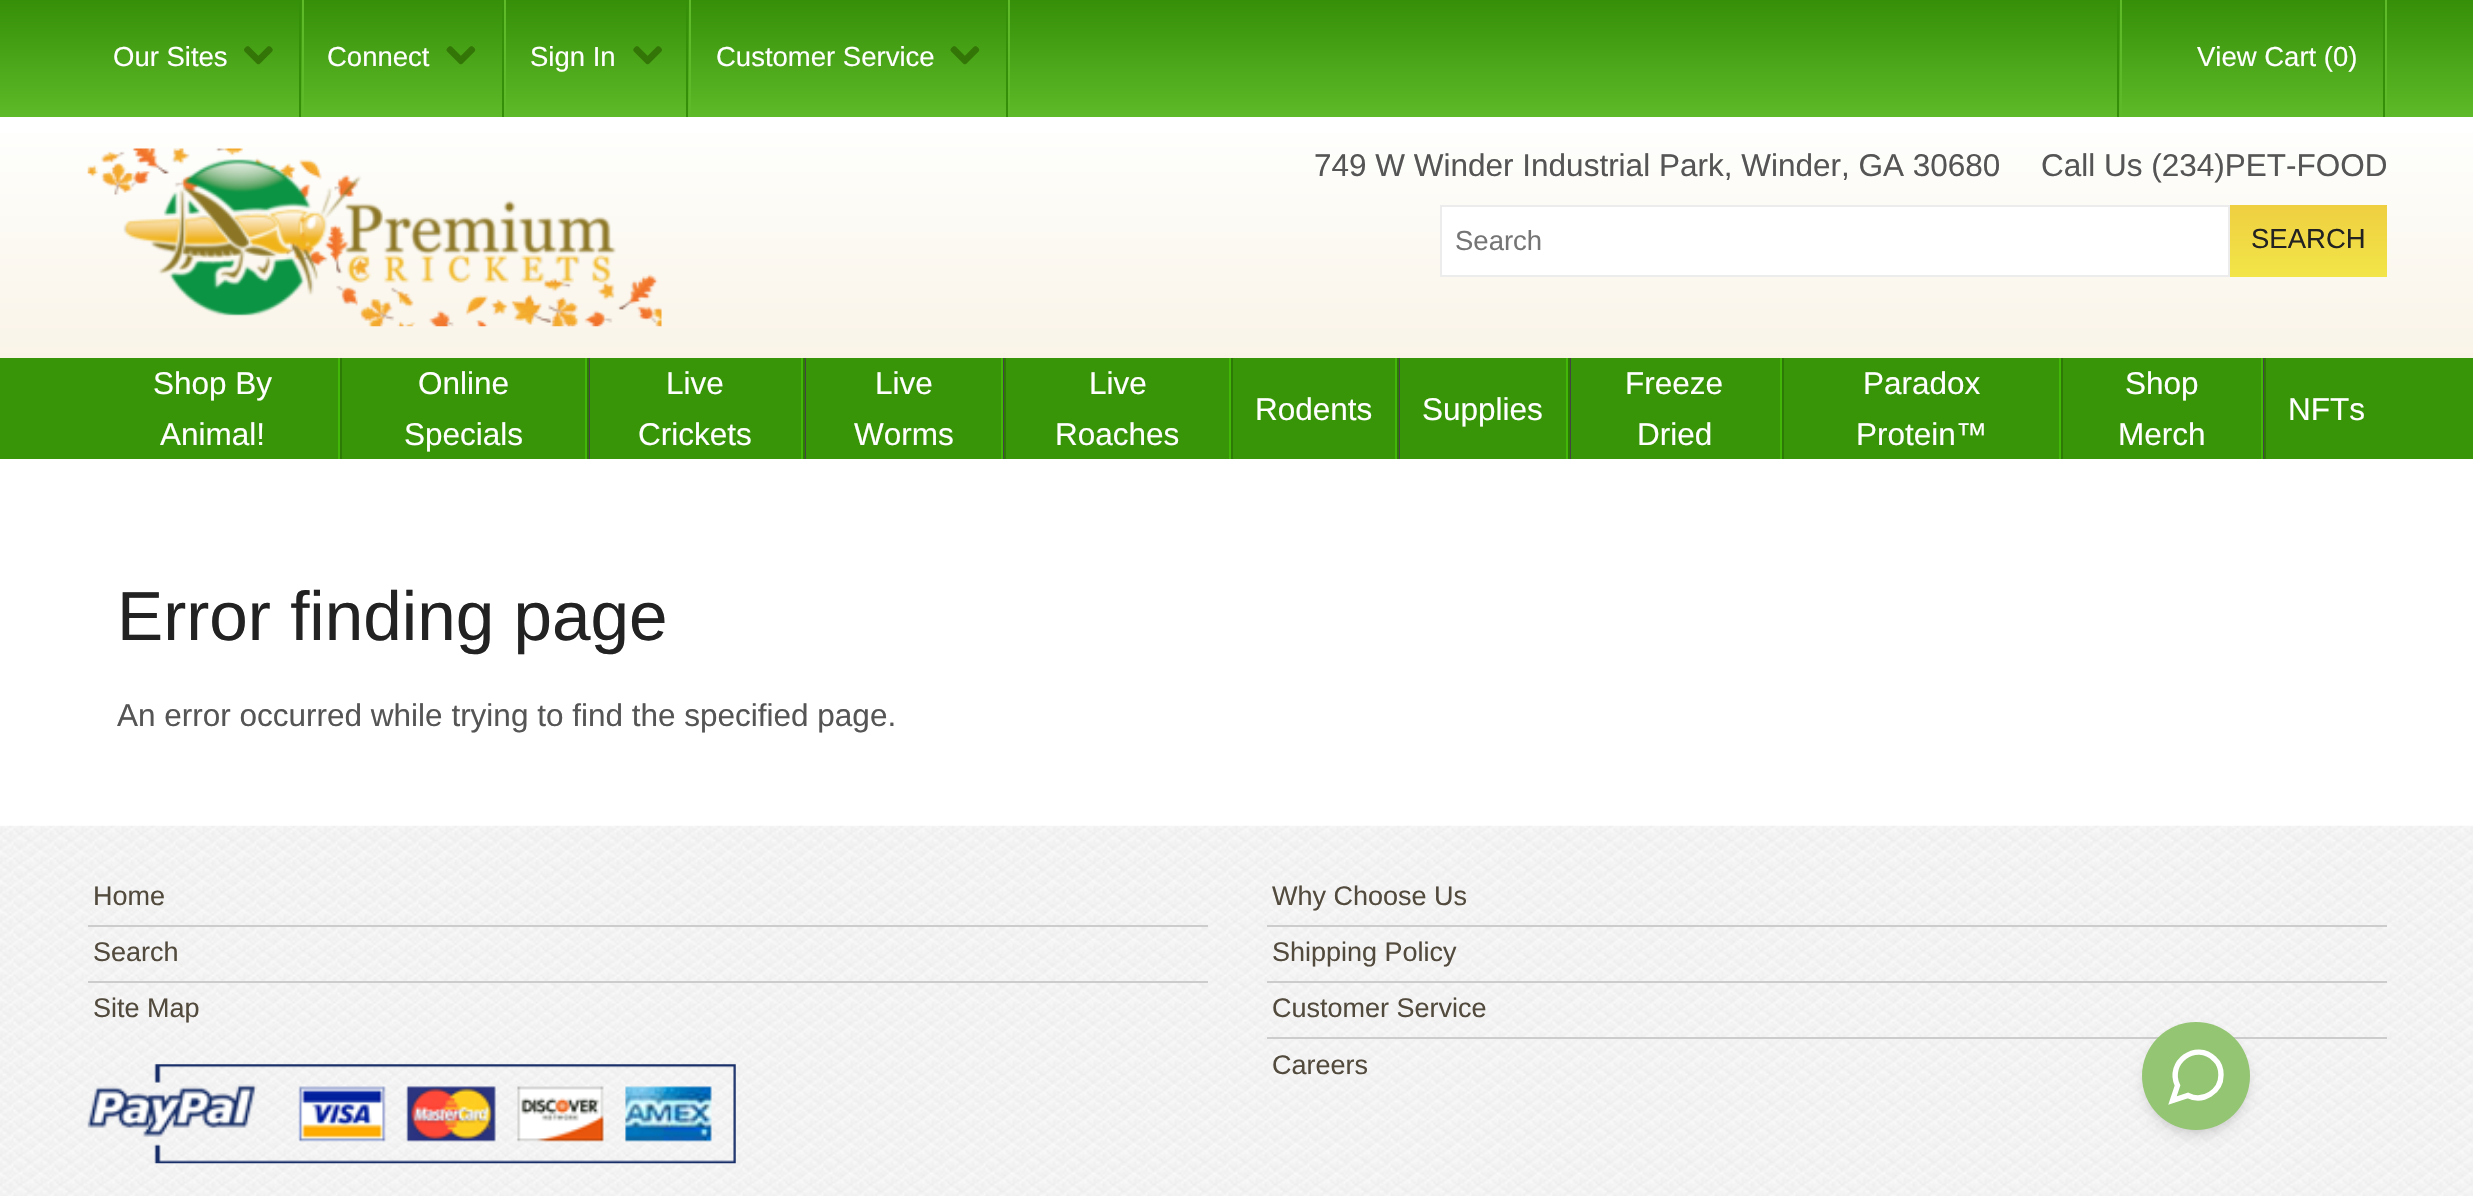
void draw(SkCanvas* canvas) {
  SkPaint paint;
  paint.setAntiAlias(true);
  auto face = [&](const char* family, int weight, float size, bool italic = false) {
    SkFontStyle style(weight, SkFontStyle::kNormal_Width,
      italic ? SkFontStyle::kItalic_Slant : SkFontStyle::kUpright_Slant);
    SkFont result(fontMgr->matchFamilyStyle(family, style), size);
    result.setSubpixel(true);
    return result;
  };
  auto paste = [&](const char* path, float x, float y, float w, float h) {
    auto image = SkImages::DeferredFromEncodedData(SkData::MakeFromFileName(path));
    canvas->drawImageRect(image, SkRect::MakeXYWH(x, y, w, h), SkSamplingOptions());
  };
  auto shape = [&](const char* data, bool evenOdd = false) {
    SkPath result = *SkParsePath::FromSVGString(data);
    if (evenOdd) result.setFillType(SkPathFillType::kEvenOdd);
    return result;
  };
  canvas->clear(0xffffffff);
  {
    const SkColor colors[] = {0xff368f08, 0xff5eba28};
    const float stops[] = {0, 1};
    const SkPoint ends[] = {{1238, 0}, {1238, 117}};
    paint.setShader(SkGradientShader::MakeLinear(ends, colors, stops, 2, SkTileMode::kClamp));
    paint.setAlpha(255);
  }
  canvas->drawRect(SkRect::MakeXYWH(0, 0, 2473, 117), paint);
  paste("img/1.png", 244, 46, 29, 19);
  paint.setShader(nullptr);
  paint.setColor(0xff5eba28);
  canvas->drawRect(SkRect::MakeXYWH(302, 0, 2, 117), paint);
  paint.setColor(0xff368f08);
  canvas->drawRect(SkRect::MakeXYWH(299, 0, 2, 117), paint);
  paste("img/2.png", 446, 46, 30, 19);
  paint.setColor(0xff5eba28);
  canvas->drawRect(SkRect::MakeXYWH(504, 0, 2, 117), paint);
  paint.setColor(0xff368f08);
  canvas->drawRect(SkRect::MakeXYWH(502, 0, 2, 117), paint);
  paste("img/3.png", 633, 46, 29, 19);
  paint.setColor(0xff5eba28);
  canvas->drawRect(SkRect::MakeXYWH(689, 0, 2, 117), paint);
  paint.setColor(0xff368f08);
  canvas->drawRect(SkRect::MakeXYWH(686, 0, 2, 117), paint);
  paste("img/2.png", 950, 46, 30, 19);
  {
    const struct { float x, y, w, h; SkColor color; } items[] = {
      {1008, 0, 2, 117, 0xff5eba28},
      {1006, 0, 2, 117, 0xff368f08},
      {2120, 0, 2, 117, 0xff5eba28},
      {2117, 0, 2, 117, 0xff368f08},
      {2385, 0, 2, 117, 0xff5eba28},
      {2383, 0, 2, 117, 0xff368f08},
    };
    for (auto [x, y, w, h, color] : items) {
      paint.setColor(color);
      canvas->drawRect(SkRect::MakeXYWH(x, y, w, h), paint);
    }
  }
  {
    const SkColor colors[] = {0xfffefffe, 0xfffaf4e8};
    const float stops[] = {0, 1};
    const SkPoint ends[] = {{1238, 117}, {1238, 358}};
    paint.setShader(SkGradientShader::MakeLinear(ends, colors, stops, 2, SkTileMode::kClamp));
    paint.setAlpha(255);
  }
  canvas->drawRect(SkRect::MakeXYWH(0, 133, 2473, 225), paint);
  paste("img/4.png", 87, 148, 575, 179);
  paint.setShader(nullptr);
  paint.setColor(0xffffffff);
  canvas->drawRect(SkRect::MakeXYWH(1441, 206, 788, 70), paint);
  paint.setStroke(true);
  paint.setStrokeWidth(2);
  paint.setColor(0xffececec);
  canvas->drawRect(SkRect::MakeXYWH(1441, 206, 788, 70), paint);
  paint.setStroke(false);
  {
    const SkColor colors[] = {0xffefcf40, 0xfff2e548};
    const float stops[] = {0, 1};
    const SkPoint ends[] = {{2309, 205}, {2309, 277}};
    paint.setShader(SkGradientShader::MakeLinear(ends, colors, stops, 2, SkTileMode::kClamp));
    paint.setAlpha(255);
  }
  canvas->drawRect(SkRect::MakeXYWH(2230, 205, 157, 72), paint);
  paint.setShader(nullptr);
  {
    const struct { float x, y, w, h; SkColor color; } items[] = {
      {0, 358, 2473, 101, 0xff379507},
      {589, 358, 1675, 101, 0xff454545},
      {340, 358, 2, 101, 0xff2d7b06},
      {338, 358, 2, 101, 0xff43b707},
      {587, 358, 2, 101, 0xff2d7b06},
      {585, 358, 2, 101, 0xff43b707},
      {590, 358, 211, 101, 0xff379507},
      {803, 358, 2, 101, 0xff2d7b06},
      {801, 358, 2, 101, 0xff43b707},
      {806, 358, 195, 101, 0xff379507},
      {1004, 358, 2, 101, 0xff2d7b06},
      {1001, 358, 2, 101, 0xff43b707},
      {1006, 358, 223, 101, 0xff379507},
      {1231, 358, 2, 101, 0xff2d7b06},
      {1229, 358, 2, 101, 0xff43b707},
      {1233, 358, 162, 101, 0xff379507},
      {1397, 358, 2, 101, 0xff2d7b06},
      {1395, 358, 2, 101, 0xff43b707},
      {1400, 358, 166, 101, 0xff379507},
      {1568, 358, 2, 101, 0xff2d7b06},
      {1566, 358, 2, 101, 0xff43b707},
      {1571, 358, 209, 101, 0xff379507},
      {1782, 358, 2, 101, 0xff2d7b06},
      {1780, 358, 2, 101, 0xff43b707},
      {1784, 358, 275, 101, 0xff379507},
      {2061, 358, 2, 101, 0xff2d7b06},
      {2059, 358, 2, 101, 0xff43b707},
      {2063, 358, 198, 101, 0xff379507},
      {2264, 358, 2, 101, 0xff2d7b06},
      {2261, 358, 2, 101, 0xff43b707},
    };
    for (auto [x, y, w, h, color] : items) {
      paint.setColor(color);
      canvas->drawRect(SkRect::MakeXYWH(x, y, w, h), paint);
    }
  }
  paste("img/5.png", 0, 825, 2473, 371);
  paint.setColor(0xffcccccc);
  canvas->drawRect(SkRect::MakeXYWH(88, 925, 1120, 2), paint);
  canvas->drawRect(SkRect::MakeXYWH(88, 981, 1120, 2), paint);
  paste("img/6.png", 87, 1064, 649, 100);
  {
    const struct { float x, y, w, h; SkColor color; } items[] = {
      {1267, 925, 1120, 2, 0xffcccccc},
      {1267, 981, 1120, 2, 0xffcccccc},
      {1267, 1037, 1120, 2, 0xffcccccc},
    };
    for (auto [x, y, w, h, color] : items) {
      paint.setColor(color);
      canvas->drawRect(SkRect::MakeXYWH(x, y, w, h), paint);
    }
  }
  paint.setColor(0x1a000000);
  paint.setMaskFilter(SkMaskFilter::MakeBlur(kNormal_SkBlurStyle, 4.5f));
  canvas->drawRoundRect(SkRect::MakeXYWH(2147, 1031, 99, 99), 49.5f, 49.5f, paint);
  paint.setMaskFilter(nullptr);
  paint.setMaskFilter(SkMaskFilter::MakeBlur(kNormal_SkBlurStyle, 7));
  canvas->drawRoundRect(SkRect::MakeXYWH(2144, 1033, 104, 103), 51.5f, 51.5f, paint);
  paint.setMaskFilter(nullptr);
  paint.setColor(0xff93c572);
  canvas->drawCircle(2196, 1076, 54, paint);
  paint.setStroke(true);
  paint.setStrokeWidth(5.4f);
  paint.setColor(0xffffffff);
  canvas->drawPath(shape("M2221 1075C2221 1091.5 2203 1103 2188 1095.5L2172.5 1100.5L2177.5 1085.5C2166.5 1062.5 2196 1040.5 2214.5 1059C2219 1063 2221 1069 2221 1075Z"), paint);
  auto f0 = face("Liberation Sans", 400, 27.5f);
  paint.setStroke(false);
  {
    const struct { const char* s; float x, y; } items[] = {
      {"Our Sites", 113, 66},
      {"Connect", 327, 66},
      {"Sign In", 530, 66},
      {"Customer Service", 716, 66},
      {"View Cart (0)", 2197, 66},
    };
    for (auto [s, x, y] : items) {
      canvas->drawString(s, x, y, f0, paint);
    }
  }
  auto f1 = face("Liberation Sans", 400, 31.5f);
  paint.setColor(0xff555555);
  canvas->drawString("749 W Winder Industrial Park, Winder, GA 30680", 1314, 176, f1, paint);
  canvas->drawString("Call Us (234)PET-FOOD", 2041, 176, f1, paint);
  paint.setColor(0xff757575);
  canvas->drawString("Search", 1455, 250, f0, paint);
  paint.setColor(0xff222222);
  canvas->drawString("SEARCH", 2251, 248, f0, paint);
  paint.setColor(0xffffffff);
  {
    const struct { const char* s; float x, y; } items[] = {
      {"Shop By", 153, 394},
      {"Animal!", 160, 445},
      {"Online", 418, 394},
      {"Specials", 404, 445},
      {"Live", 666, 394},
      {"Crickets", 638, 445},
      {"Live", 875, 394},
      {"Worms", 854, 445},
      {"Live", 1089, 394},
      {"Roaches", 1055, 445},
      {"Rodents", 1255, 420},
      {"Supplies", 1422, 420},
      {"Freeze", 1625, 394},
      {"Dried", 1637, 445},
      {"Paradox", 1863, 394},
      {"Protein™", 1856, 445},
      {"Shop", 2125, 394},
      {"Merch", 2118, 445},
      {"NFTs", 2288, 420},
    };
    for (auto [s, x, y] : items) {
      canvas->drawString(s, x, y, f1, paint);
    }
  }
  auto f2 = face("Liberation Sans", 400, 69.25f);
  paint.setColor(0xff222222);
  canvas->drawString("Error finding page", 117, 640, f2, paint);
  paint.setColor(0xff555555);
  canvas->drawString("An error occurred while trying to find the specified page.", 117, 726, f1, paint);
  auto f3 = face("Liberation Sans", 400, 27);
  paint.setColor(0xff524a3d);
  {
    const struct { const char* s; float x, y; } items[] = {
      {"Home", 93, 905},
      {"Search", 93, 961},
      {"Site Map", 93, 1017},
      {"Why Choose Us", 1272, 905},
      {"Shipping Policy", 1272, 961},
      {"Customer Service", 1272, 1017},
      {"Careers", 1272, 1074},
    };
    for (auto [s, x, y] : items) {
      canvas->drawString(s, x, y, f3, paint);
    }
  }
}
